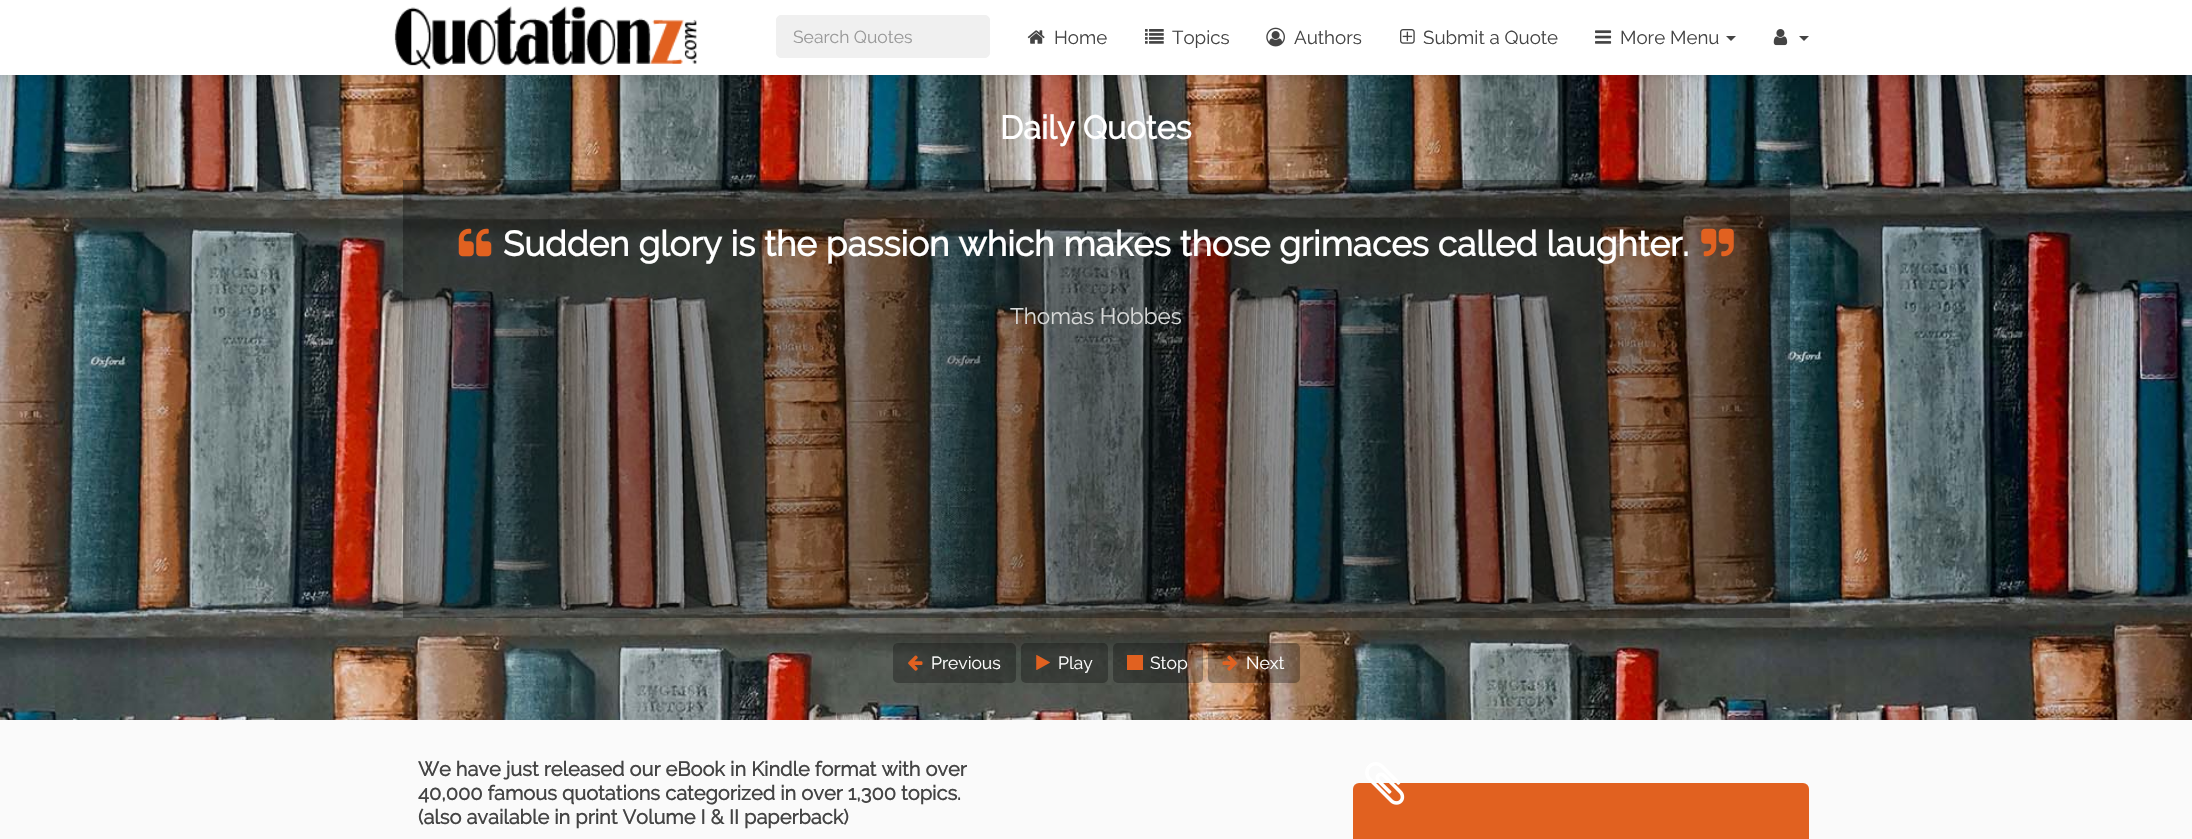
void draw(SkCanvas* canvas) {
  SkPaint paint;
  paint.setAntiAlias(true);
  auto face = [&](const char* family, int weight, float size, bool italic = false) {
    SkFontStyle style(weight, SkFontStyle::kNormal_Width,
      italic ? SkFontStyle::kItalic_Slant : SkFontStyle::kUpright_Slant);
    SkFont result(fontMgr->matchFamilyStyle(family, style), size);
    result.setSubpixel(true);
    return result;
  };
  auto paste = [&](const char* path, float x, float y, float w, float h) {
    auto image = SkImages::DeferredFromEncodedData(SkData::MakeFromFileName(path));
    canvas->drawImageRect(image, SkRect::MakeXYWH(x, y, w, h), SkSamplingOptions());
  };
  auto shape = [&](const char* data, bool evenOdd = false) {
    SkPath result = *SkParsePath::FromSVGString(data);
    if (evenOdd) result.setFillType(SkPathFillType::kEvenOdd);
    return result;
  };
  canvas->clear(0xfffafafa);
  paste("img/8.png", 0, 75, 2192, 645);
  paint.setColor(0x33000000);
  paint.setMaskFilter(SkMaskFilter::MakeBlur(kNormal_SkBlurStyle, 6));
  canvas->drawRect(SkRect::MakeXYWH(0, 0, 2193, 75), paint);
  paint.setMaskFilter(nullptr);
  paint.setColor(0xffffffff);
  canvas->drawRect(SkRect::MakeXYWH(0, 0, 2192, 75), paint);
  paste("img/1.png", 394, 6, 303, 63);
  paint.setColor(0xfff0f0f0);
  canvas->drawRoundRect(SkRect::MakeXYWH(776.5f, 15.5f, 213, 42), 4.5f, 4.5f, paint);
  paint.setStroke(true);
  paint.setStrokeWidth(1);
  canvas->drawRoundRect(SkRect::MakeXYWH(776.5f, 15.5f, 213, 42), 4.5f, 4.5f, paint);
  paste("img/2.png", 1027, 30, 18, 14);
  paste("img/3.png", 1145, 29, 19, 15);
  paste("img/4.png", 1266, 27, 19, 20);
  paste("img/5.png", 1400, 29, 15, 15);
  paste("img/6.png", 1595, 30, 17, 14);
  paint.setStroke(false);
  paint.setColor(0xff444444);
  canvas->drawPath(shape("M1726 36H1736L1731 41Z"), paint);
  paste("img/7.png", 1773, 29, 15, 17);
  canvas->drawPath(shape("M1799 36H1809L1804 41Z"), paint);
  paint.setColor(0x59000000);
  canvas->drawRect(SkRect::MakeXYWH(403, 180, 1387, 438), paint);
  paste("img/9.png", 458, 228, 34, 29);
  paste("img/10.png", 1701, 228, 33, 29);
  paint.setColor(0x4d000000);
  canvas->drawRoundRect(SkRect::MakeXYWH(893, 643, 123, 40), 5, 5, paint);
  paste("img/11.png", 908, 655, 15, 16);
  canvas->drawRoundRect(SkRect::MakeXYWH(1021, 643, 87, 40), 5, 5, paint);
  paste("img/12.png", 1036, 655, 14, 15);
  canvas->drawRoundRect(SkRect::MakeXYWH(1113, 643, 90, 40), 5, 5, paint);
  paint.setColor(0xffe16120);
  canvas->drawRect(SkRect::MakeXYWH(1127, 655, 16, 15), paint);
  paint.setColor(0x4d000000);
  canvas->drawRoundRect(SkRect::MakeXYWH(1208, 643, 92, 40), 5, 5, paint);
  paste("img/13.png", 1222, 655, 15, 16);
  paint.setColor(0xffe16120);
  canvas->drawRoundRect(SkRect::MakeXYWH(1353, 783, 456, 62), 6, 6, paint);
  paste("img/14.png", 1365, 762, 40, 43);
  auto f0 = face("Raleway", 400, 17.5f);
  paint.setColor(0xff999999);
  canvas->drawString("Search Quotes", 793, 43, f0, paint);
  auto f1 = face("Raleway", 400, 18.75f);
  paint.setColor(0xff444444);
  {
    const struct { const char* s; float x, y; } items[] = {
      {"Home", 1054, 44},
      {"Topics", 1172, 44},
      {"Authors", 1294, 44},
      {"Submit a Quote", 1423, 44},
      {"More Menu", 1620, 44},
    };
    for (auto [s, x, y] : items) {
      canvas->drawString(s, x, y, f1, paint);
    }
  }
  auto f2 = face("Raleway", 700, 32.5f);
  paint.setColor(0xffffffff);
  canvas->drawString("Daily Quotes", 1000, 139, f2, paint);
  auto f3 = face("Raleway", 700, 35);
  canvas->drawString("Sudden glory is the passion which makes those grimaces called laughter.", 503, 256, f3, paint);
  auto f4 = face("Raleway", 400, 22.5f);
  paint.setColor(0xffd9dad9);
  canvas->drawString("Thomas Hobbes", 1010, 324, f4, paint);
  paint.setColor(0xffffffff);
  {
    const struct { const char* s; float x, y; } items[] = {
      {"Previous", 931, 669},
      {"Play", 1058, 669},
      {"Stop", 1150, 669},
      {"Next", 1246, 669},
    };
    for (auto [s, x, y] : items) {
      canvas->drawString(s, x, y, f0, paint);
    }
  }
  auto f5 = face("Raleway", 700, 20);
  paint.setColor(0xff444444);
  {
    const struct { const char* s; float x, y; } items[] = {
      {"We have just released our eBook in Kindle format with over", 418, 776},
      {"40,000 famous quotations categorized in over 1,300 topics.", 418, 800},
      {"(also available in print Volume I & II paperback)", 418, 824},
    };
    for (auto [s, x, y] : items) {
      canvas->drawString(s, x, y, f5, paint);
    }
  }
}
